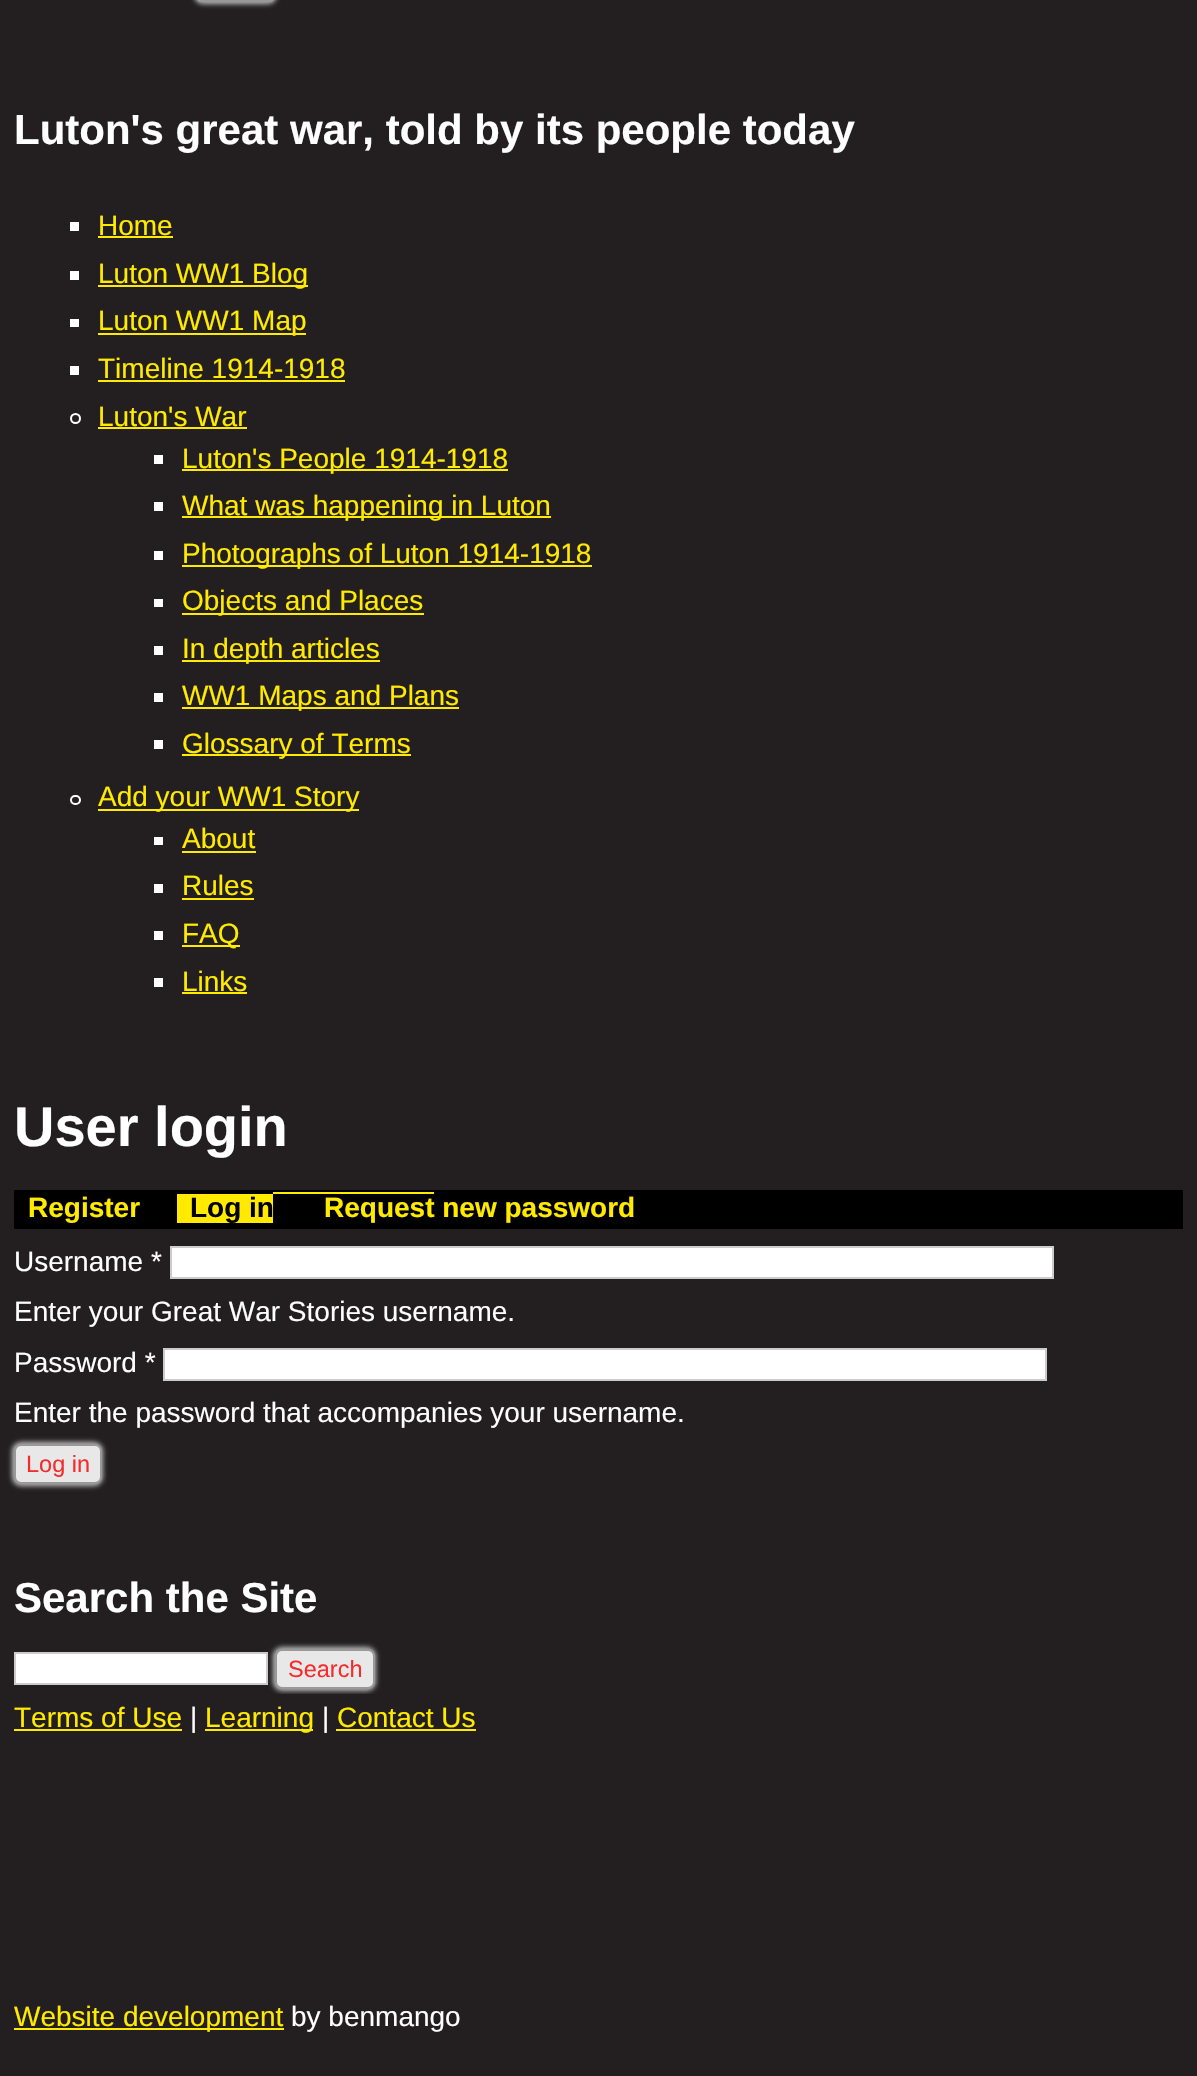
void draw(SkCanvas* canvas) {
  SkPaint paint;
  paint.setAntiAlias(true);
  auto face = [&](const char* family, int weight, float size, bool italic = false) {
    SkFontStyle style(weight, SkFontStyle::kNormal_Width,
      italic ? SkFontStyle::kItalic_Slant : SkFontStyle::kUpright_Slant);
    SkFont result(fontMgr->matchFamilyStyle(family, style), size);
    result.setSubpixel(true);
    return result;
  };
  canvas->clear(0xff231f20);
  paint.setColor(0xffbbbbbb);
  paint.setMaskFilter(SkMaskFilter::MakeBlur(kNormal_SkBlurStyle, 2.5f));
  canvas->drawRoundRect(SkRect::MakeXYWH(194, -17, 83, 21), 9, 9, paint);
  paint.setMaskFilter(nullptr);
  paint.setStroke(true);
  paint.setStrokeWidth(2);
  paint.setColor(0xff999999);
  canvas->drawRoundRect(SkRect::MakeXYWH(197, -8, 77, 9), 6, 6, paint);
  paint.setStroke(false);
  {
    const struct { float x, y, w, h; SkColor color; } items[] = {
      {70, 222, 9, 9, 0xffffffff},
      {98, 236, 75, 2, 0xffffea00},
      {70, 271, 9, 9, 0xffffffff},
      {98, 285, 210, 2, 0xffffea00},
      {70, 319, 9, 8, 0xffffffff},
      {98, 333, 208, 2, 0xffffea00},
      {70, 366, 9, 9, 0xffffffff},
      {98, 380, 247, 2, 0xffffea00},
    };
    for (auto [x, y, w, h, color] : items) {
      paint.setColor(color);
      canvas->drawRect(SkRect::MakeXYWH(x, y, w, h), paint);
    }
  }
  paint.setStroke(true);
  paint.setColor(0xffffffff);
  canvas->drawCircle(75.5f, 418.5f, 4.5f, paint);
  paint.setStroke(false);
  {
    const struct { float x, y, w, h; SkColor color; } items[] = {
      {98, 427, 149, 2, 0xffffea00},
      {154, 455, 9, 9, 0xffffffff},
      {182, 469, 326, 2, 0xffffea00},
      {154, 502, 9, 9, 0xffffffff},
      {182, 516, 369, 2, 0xffffea00},
      {154, 551, 9, 9, 0xffffffff},
      {182, 565, 410, 2, 0xffffea00},
      {154, 599, 9, 8, 0xffffffff},
      {182, 613, 242, 2, 0xffffea00},
      {154, 646, 9, 9, 0xffffffff},
      {182, 660, 198, 2, 0xffffea00},
      {154, 693, 9, 9, 0xffffffff},
      {182, 707, 277, 2, 0xffffea00},
      {154, 740, 9, 9, 0xffffffff},
      {182, 754, 229, 2, 0xffffea00},
    };
    for (auto [x, y, w, h, color] : items) {
      paint.setColor(color);
      canvas->drawRect(SkRect::MakeXYWH(x, y, w, h), paint);
    }
  }
  paint.setStroke(true);
  paint.setColor(0xffffffff);
  canvas->drawRoundRect(SkRect::MakeXYWH(71, 796, 9, 8), 4, 4, paint);
  paint.setStroke(false);
  {
    const struct { float x, y, w, h; SkColor color; } items[] = {
      {98, 809, 261, 2, 0xffffea00},
      {154, 837, 9, 8, 0xffffffff},
      {182, 851, 74, 2, 0xffffea00},
      {154, 884, 9, 9, 0xffffffff},
      {182, 898, 72, 2, 0xffffea00},
      {154, 931, 9, 9, 0xffffffff},
      {182, 945, 58, 2, 0xffffea00},
      {154, 978, 9, 9, 0xffffffff},
      {182, 992, 65, 2, 0xffffea00},
      {14, 1190, 1169, 39, 0xff000000},
      {177, 1194, 96, 29, 0xffffea00},
      {273, 1192, 161, 2, 0xffffea00},
    };
    for (auto [x, y, w, h, color] : items) {
      paint.setColor(color);
      canvas->drawRect(SkRect::MakeXYWH(x, y, w, h), paint);
    }
  }
  paint.setColor(0xffffffff);
  canvas->drawRect(SkRect::MakeXYWH(171, 1247, 882, 31), paint);
  paint.setStroke(true);
  paint.setColor(0xffcccccc);
  canvas->drawRect(SkRect::MakeXYWH(171, 1247, 882, 31), paint);
  paint.setStroke(false);
  paint.setColor(0xffffffff);
  canvas->drawRect(SkRect::MakeXYWH(164, 1349, 882, 31), paint);
  paint.setStroke(true);
  paint.setColor(0xffcccccc);
  canvas->drawRect(SkRect::MakeXYWH(164, 1349, 882, 31), paint);
  paint.setStroke(false);
  paint.setColor(0xffbbbbbb);
  paint.setMaskFilter(SkMaskFilter::MakeBlur(kNormal_SkBlurStyle, 2.5f));
  canvas->drawRoundRect(SkRect::MakeXYWH(12, 1442, 91, 44), 9, 9, paint);
  paint.setMaskFilter(nullptr);
  paint.setColor(0xffe8e8e8);
  canvas->drawRoundRect(SkRect::MakeXYWH(15, 1445, 86, 38), 6, 6, paint);
  paint.setStroke(true);
  paint.setColor(0xff999999);
  canvas->drawRoundRect(SkRect::MakeXYWH(15, 1445, 86, 38), 6, 6, paint);
  paint.setStroke(false);
  paint.setColor(0xffffffff);
  canvas->drawRect(SkRect::MakeXYWH(15, 1653, 252, 31), paint);
  paint.setStroke(true);
  paint.setColor(0xffcccccc);
  canvas->drawRect(SkRect::MakeXYWH(15, 1653, 252, 31), paint);
  canvas->save();
  canvas->clipRect(SkRect::MakeXYWH(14, 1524, 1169, 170));
  paint.setStroke(false);
  paint.setColor(0xffbbbbbb);
  paint.setMaskFilter(SkMaskFilter::MakeBlur(kNormal_SkBlurStyle, 2.5f));
  canvas->drawRoundRect(SkRect::MakeXYWH(273, 1647, 103, 44), 9, 9, paint);
  paint.setMaskFilter(nullptr);
  canvas->restore();
  paint.setColor(0xffe8e8e8);
  canvas->drawRoundRect(SkRect::MakeXYWH(276, 1650, 98, 38), 6, 6, paint);
  paint.setStroke(true);
  paint.setColor(0xff999999);
  canvas->drawRoundRect(SkRect::MakeXYWH(276, 1650, 98, 38), 6, 6, paint);
  paint.setStroke(false);
  {
    const struct { float x, y, w, h; SkColor color; } items[] = {
      {14, 1729, 168, 2, 0xffffea00},
      {205, 1729, 108, 2, 0xffffea00},
      {336, 1729, 140, 2, 0xffffea00},
      {14, 2028, 270, 2, 0xffffea00},
    };
    for (auto [x, y, w, h, color] : items) {
      paint.setColor(color);
      canvas->drawRect(SkRect::MakeXYWH(x, y, w, h), paint);
    }
  }
  auto f0 = face("Liberation Sans", 700, 42);
  paint.setColor(0xffffffff);
  canvas->drawString("Luton's great war, told by its people today", 14, 144, f0, paint);
  auto f1 = face("Liberation Sans", 400, 28);
  paint.setColor(0xffffea00);
  {
    const struct { const char* s; float x, y; } items[] = {
      {"Home", 98, 235},
      {"Luton WW1 Blog", 98, 283},
      {"Luton WW1 Map", 98, 330},
      {"Timeline 1914-1918", 98, 378},
      {"Luton's War", 98, 426},
      {"Luton's People 1914-1918", 182, 468},
      {"What was happening in Luton", 182, 515},
      {"Photographs of Luton 1914-1918", 182, 563},
      {"Objects and Places", 182, 610},
      {"In depth articles", 182, 658},
      {"WW1 Maps and Plans", 182, 705},
      {"Glossary of Terms", 182, 753},
      {"Add your WW1 Story", 98, 806},
      {"About", 182, 848},
      {"Rules", 182, 895},
      {"FAQ", 182, 943},
      {"Links", 182, 991},
    };
    for (auto [s, x, y] : items) {
      canvas->drawString(s, x, y, f1, paint);
    }
  }
  auto f2 = face("Liberation Sans", 700, 56);
  paint.setColor(0xffffffff);
  canvas->drawString("User login", 14, 1146, f2, paint);
  auto f3 = face("Liberation Sans", 700, 28);
  paint.setColor(0xffffea00);
  canvas->drawString("Register", 28, 1217, f3, paint);
  paint.setColor(0xff000000);
  canvas->drawString("Log in", 190, 1217, f3, paint);
  paint.setColor(0xffffea00);
  canvas->drawString("Request new password", 324, 1217, f3, paint);
  paint.setColor(0xffffffff);
  {
    const struct { const char* s; float x, y; } items[] = {
      {"Username *", 14, 1271},
      {"Enter your Great War Stories username.", 14, 1321},
      {"Password *", 14, 1372},
      {"Enter the password that accompanies your username.", 14, 1422},
    };
    for (auto [s, x, y] : items) {
      canvas->drawString(s, x, y, f1, paint);
    }
  }
  auto f4 = face("Liberation Sans", 400, 23.5f);
  paint.setColor(0xfff52c2c);
  canvas->drawString("Log in", 26, 1472, f4, paint);
  paint.setColor(0xffffffff);
  canvas->drawString("Search the Site", 14, 1612, f0, paint);
  paint.setColor(0xfff52c2c);
  canvas->drawString("Search", 288, 1677, f4, paint);
  paint.setColor(0xffffea00);
  canvas->drawString("Terms of Use", 14, 1727, f1, paint);
  paint.setColor(0xffffffff);
  canvas->drawString("|", 190, 1727, f1, paint);
  paint.setColor(0xffffea00);
  canvas->drawString("Learning", 205, 1727, f1, paint);
  paint.setColor(0xffffffff);
  canvas->drawString("|", 322, 1727, f1, paint);
  paint.setColor(0xffffea00);
  canvas->drawString("Contact Us", 337, 1727, f1, paint);
  canvas->drawString("Website development", 14, 2026, f1, paint);
  paint.setColor(0xffffffff);
  canvas->drawString("by benmango", 291, 2026, f1, paint);
}
